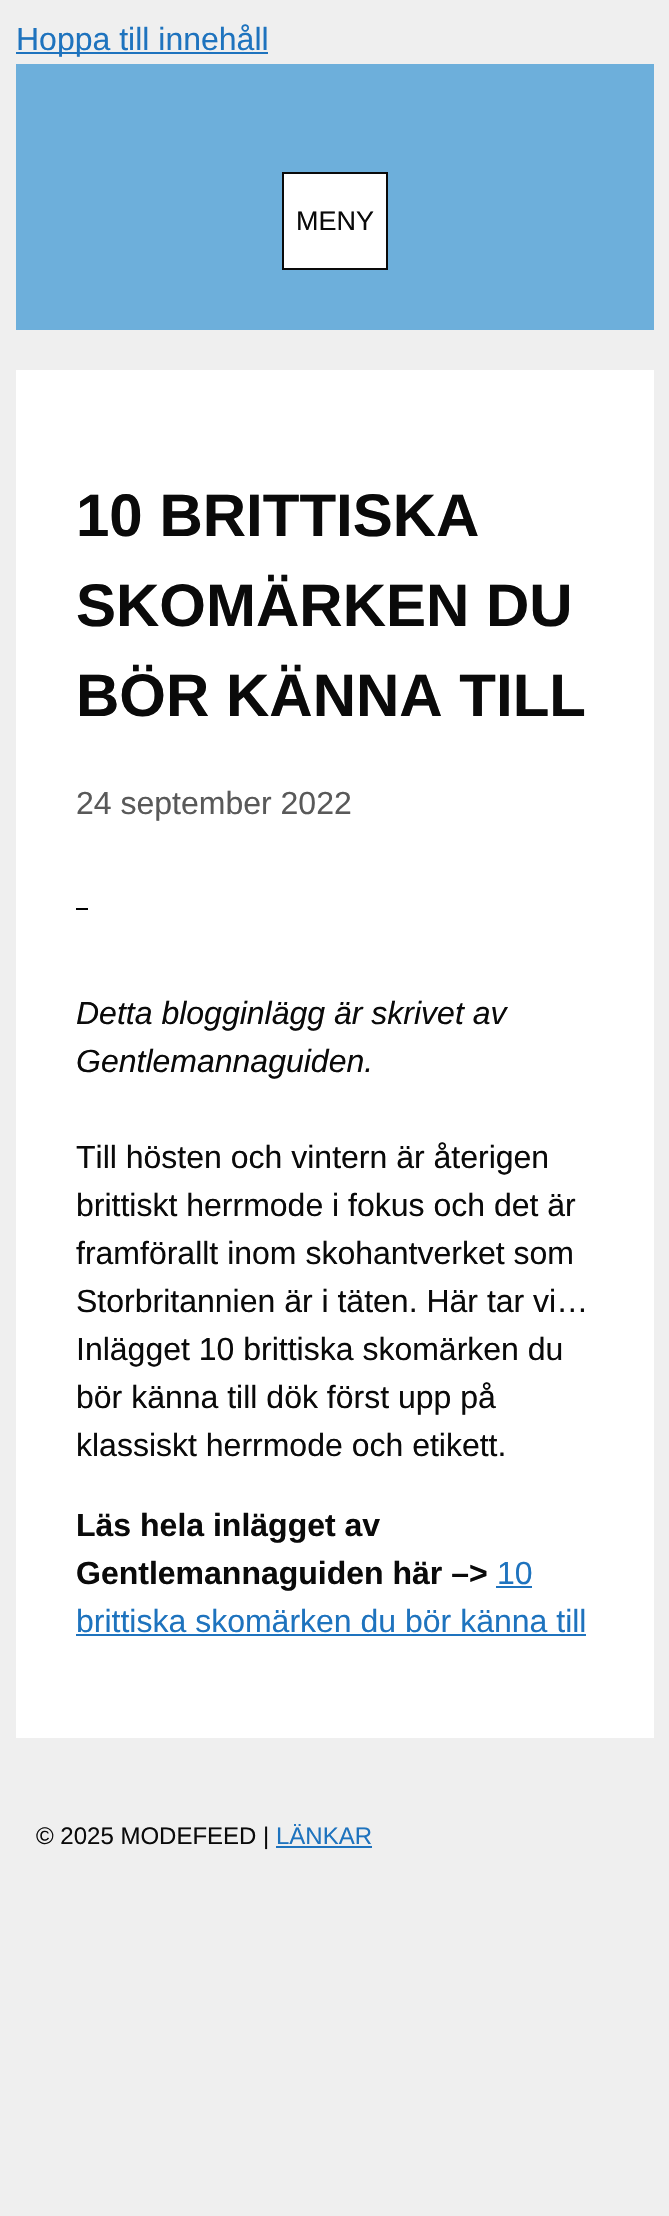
void draw(SkCanvas* canvas) {
  SkPaint paint;
  paint.setAntiAlias(true);
  auto face = [&](const char* family, int weight, float size, bool italic = false) {
    SkFontStyle style(weight, SkFontStyle::kNormal_Width,
      italic ? SkFontStyle::kItalic_Slant : SkFontStyle::kUpright_Slant);
    SkFont result(fontMgr->matchFamilyStyle(family, style), size);
    result.setSubpixel(true);
    return result;
  };
  canvas->clear(0xffefefef);
  paint.setColor(0xff1e73be);
  canvas->drawRect(SkRect::MakeXYWH(16, 52, 252, 2), paint);
  paint.setColor(0xff6dafdb);
  canvas->drawRect(SkRect::MakeXYWH(16, 64, 638, 266), paint);
  paint.setColor(0xffffffff);
  canvas->drawRect(SkRect::MakeXYWH(283, 173, 104, 96), paint);
  paint.setStroke(true);
  paint.setStrokeWidth(2);
  paint.setColor(0xff0a0a0a);
  canvas->drawRect(SkRect::MakeXYWH(283, 173, 104, 96), paint);
  paint.setStroke(false);
  {
    const struct { float x, y, w, h; SkColor color; } items[] = {
      {16, 370, 638, 1368, 0xffffffff},
      {76, 908, 12, 2, 0xff000000},
      {496, 1586, 36, 2, 0xff1e73be},
      {76, 1634, 510, 2, 0xff1e73be},
      {276, 1846, 96, 2, 0xff1e73be},
    };
    for (auto [x, y, w, h, color] : items) {
      paint.setColor(color);
      canvas->drawRect(SkRect::MakeXYWH(x, y, w, h), paint);
    }
  }
  auto f0 = face("Arimo", 400, 32);
  canvas->drawString("Hoppa till innehåll", 16, 50, f0, paint);
  auto f1 = face("Arimo", 400, 27);
  paint.setColor(0xff0a0a0a);
  canvas->drawString("MENY", 296, 230, f1, paint);
  auto f2 = face("Arimo", 700, 60);
  {
    const struct { const char* s; float x, y; } items[] = {
      {"10 BRITTISKA", 76, 536},
      {"SKOMÄRKEN DU", 76, 626},
      {"BÖR KÄNNA TILL", 76, 716},
    };
    for (auto [s, x, y] : items) {
      canvas->drawString(s, x, y, f2, paint);
    }
  }
  paint.setColor(0xff595959);
  canvas->drawString("24 september 2022", 76, 814, f0, paint);
  auto f3 = face("Arimo", 400, 32, true);
  paint.setColor(0xff0a0a0a);
  canvas->drawString("Detta blogginlägg är skrivet av", 76, 1024, f3, paint);
  canvas->drawString("Gentlemannaguiden.", 76, 1072, f3, paint);
  {
    const struct { const char* s; float x, y; } items[] = {
      {"Till hösten och vintern är återigen", 76, 1168},
      {"brittiskt herrmode i fokus och det är", 76, 1216},
      {"framförallt inom skohantverket som", 76, 1264},
      {"Storbritannien är i täten. Här tar vi…", 76, 1312},
      {"Inlägget 10 brittiska skomärken du", 76, 1360},
      {"bör känna till dök först upp på", 76, 1408},
      {"klassiskt herrmode och etikett.", 76, 1456},
    };
    for (auto [s, x, y] : items) {
      canvas->drawString(s, x, y, f0, paint);
    }
  }
  auto f4 = face("Arimo", 700, 32);
  canvas->drawString("Läs hela inlägget av", 76, 1536, f4, paint);
  canvas->drawString("Gentlemannaguiden här –>", 76, 1584, f4, paint);
  paint.setColor(0xff1e73be);
  canvas->drawString("10", 497, 1584, f0, paint);
  canvas->drawString("brittiska skomärken du bör känna till", 76, 1632, f0, paint);
  auto f5 = face("Arimo", 400, 24);
  paint.setColor(0xff0a0a0a);
  canvas->drawString("© 2025 MODEFEED |", 36, 1844, f5, paint);
  paint.setColor(0xff1e73be);
  canvas->drawString("LÄNKAR", 276, 1844, f5, paint);
}
